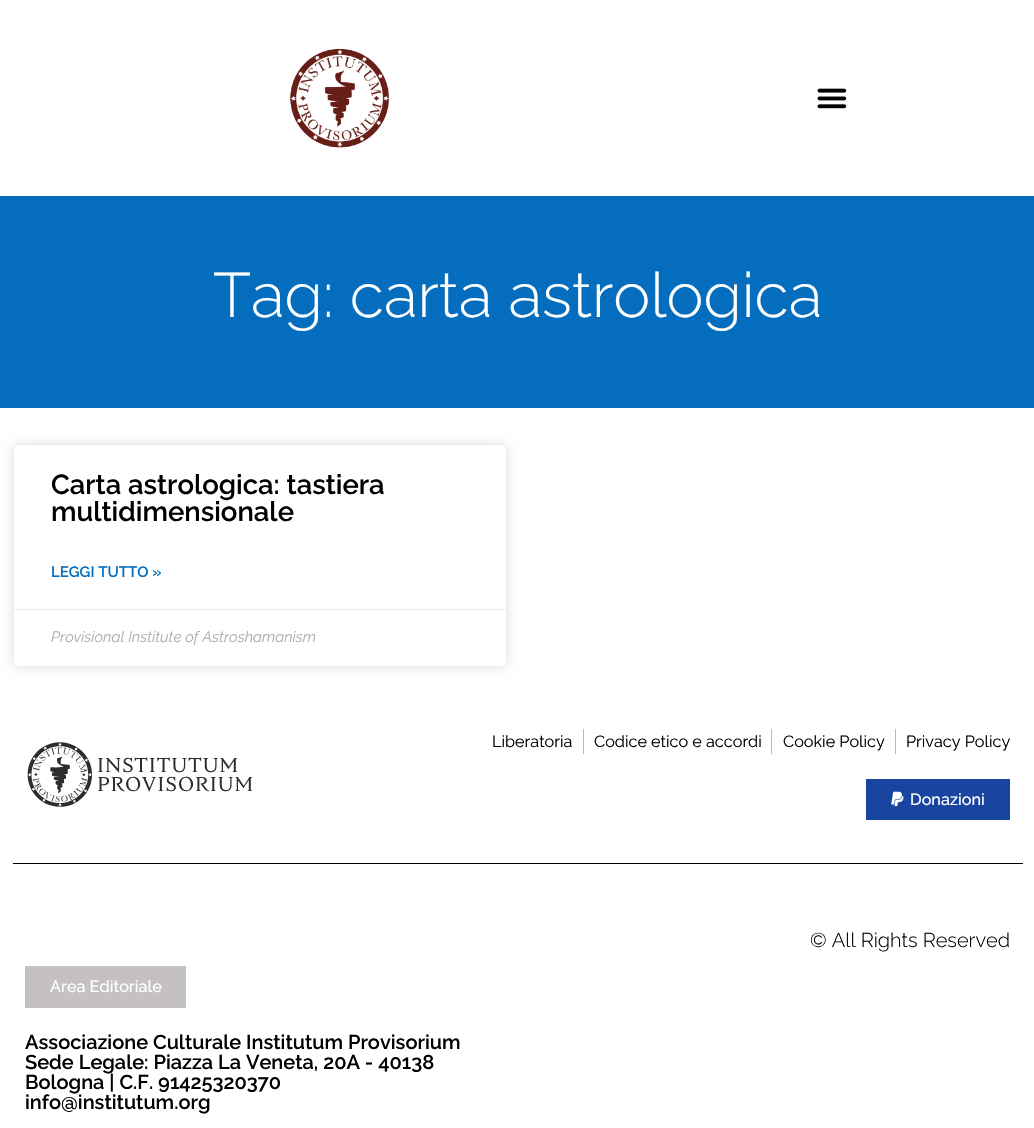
void draw(SkCanvas* canvas) {
  SkPaint paint;
  paint.setAntiAlias(true);
  auto face = [&](const char* family, int weight, float size, bool italic = false) {
    SkFontStyle style(weight, SkFontStyle::kNormal_Width,
      italic ? SkFontStyle::kItalic_Slant : SkFontStyle::kUpright_Slant);
    SkFont result(fontMgr->matchFamilyStyle(family, style), size);
    result.setSubpixel(true);
    return result;
  };
  auto paste = [&](const char* path, float x, float y, float w, float h) {
    auto image = SkImages::DeferredFromEncodedData(SkData::MakeFromFileName(path));
    canvas->drawImageRect(image, SkRect::MakeXYWH(x, y, w, h), SkSamplingOptions());
  };
  auto shape = [&](const char* data, bool evenOdd = false) {
    SkPath result = *SkParsePath::FromSVGString(data);
    if (evenOdd) result.setFillType(SkPathFillType::kEvenOdd);
    return result;
  };
  canvas->clear(0xffffffff);
  paste("img/1.png", 290, 48, 100, 100);
  paste("img/2.png", 817, 88, 30, 21);
  paint.setColor(0xff046dbd);
  canvas->drawRect(SkRect::MakeXYWH(0, 196, 1034, 212), paint);
  canvas->save();
  canvas->clipPath(shape("M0 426H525V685H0ZM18 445H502C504 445 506 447 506 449V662C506 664 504 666 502 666H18C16 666 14 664 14 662V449C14 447 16 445 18 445Z", true), true);
  paint.setColor(0x26000000);
  paint.setMaskFilter(SkMaskFilter::MakeBlur(kNormal_SkBlurStyle, 6));
  canvas->drawRoundRect(SkRect::MakeXYWH(14, 445, 492, 221), 4, 4, paint);
  paint.setMaskFilter(nullptr);
  canvas->restore();
  paint.setColor(0xffeaeaea);
  canvas->drawRect(SkRect::MakeXYWH(14, 609, 492, 1), paint);
  paste("img/3.png", 27, 742, 226, 65);
  {
    const struct { float x, y, w, h; SkColor color; } items[] = {
      {583, 729, 1, 25, 0xffbababa},
      {771, 729, 1, 25, 0xffbababa},
      {895, 729, 1, 25, 0xffbababa},
      {866, 779, 144, 41, 0xff1945a1},
    };
    for (auto [x, y, w, h, color] : items) {
      paint.setColor(color);
      canvas->drawRect(SkRect::MakeXYWH(x, y, w, h), paint);
    }
  }
  paste("img/4.png", 891, 791, 13, 16);
  paint.setColor(0xff000000);
  canvas->drawRect(SkRect::MakeXYWH(13, 863, 1010, 1), paint);
  paint.setColor(0xffc5c1c1);
  canvas->drawRect(SkRect::MakeXYWH(25, 966, 161, 42), paint);
  auto f0 = face("Raleway", 300, 62.5f);
  paint.setColor(0xffffffff);
  canvas->drawString("Tag: carta astrologica", 213, 317, f0, paint);
  auto f1 = face("Raleway", 600, 27.5f);
  paint.setColor(0xff000000);
  canvas->drawString("Carta astrologica: tastiera", 51, 494, f1, paint);
  canvas->drawString("multidimensionale", 51, 521, f1, paint);
  auto f2 = face("Raleway", 600, 15);
  paint.setColor(0xff046dbd);
  canvas->drawString("LEGGI TUTTO »", 51, 577, f2, paint);
  auto f3 = face("Raleway", 400, 15, true);
  paint.setColor(0xffadadad);
  canvas->drawString("Provisional Institute of Astroshamanism", 51, 642, f3, paint);
  auto f4 = face("Raleway", 400, 16.25f);
  paint.setColor(0xff000000);
  {
    const struct { const char* s; float x, y; } items[] = {
      {"Liberatoria", 492, 747},
      {"Codice etico e accordi", 594, 747},
      {"Cookie Policy", 783, 747},
      {"Privacy Policy", 906, 747},
    };
    for (auto [s, x, y] : items) {
      canvas->drawString(s, x, y, f4, paint);
    }
  }
  auto f5 = face("Raleway", 500, 16.25f);
  paint.setColor(0xffffffff);
  canvas->drawString("Donazioni", 910, 805, f5, paint);
  auto f6 = face("Raleway", 300, 20);
  paint.setColor(0xff000000);
  canvas->drawString("© All Rights Reserved", 810, 947, f6, paint);
  paint.setColor(0xffffffff);
  canvas->drawString("Area Editoriale", 50, 992, f5, paint);
  auto f7 = face("Raleway", 600, 20);
  paint.setColor(0xff000000);
  {
    const struct { const char* s; float x, y; } items[] = {
      {"Associazione Culturale Institutum Provisorium", 25, 1049},
      {"Sede Legale: Piazza La Veneta, 20A - 40138", 25, 1069},
      {"Bologna | C.F. 91425320370", 25, 1089},
      {"info@institutum.org", 25, 1109},
    };
    for (auto [s, x, y] : items) {
      canvas->drawString(s, x, y, f7, paint);
    }
  }
}
